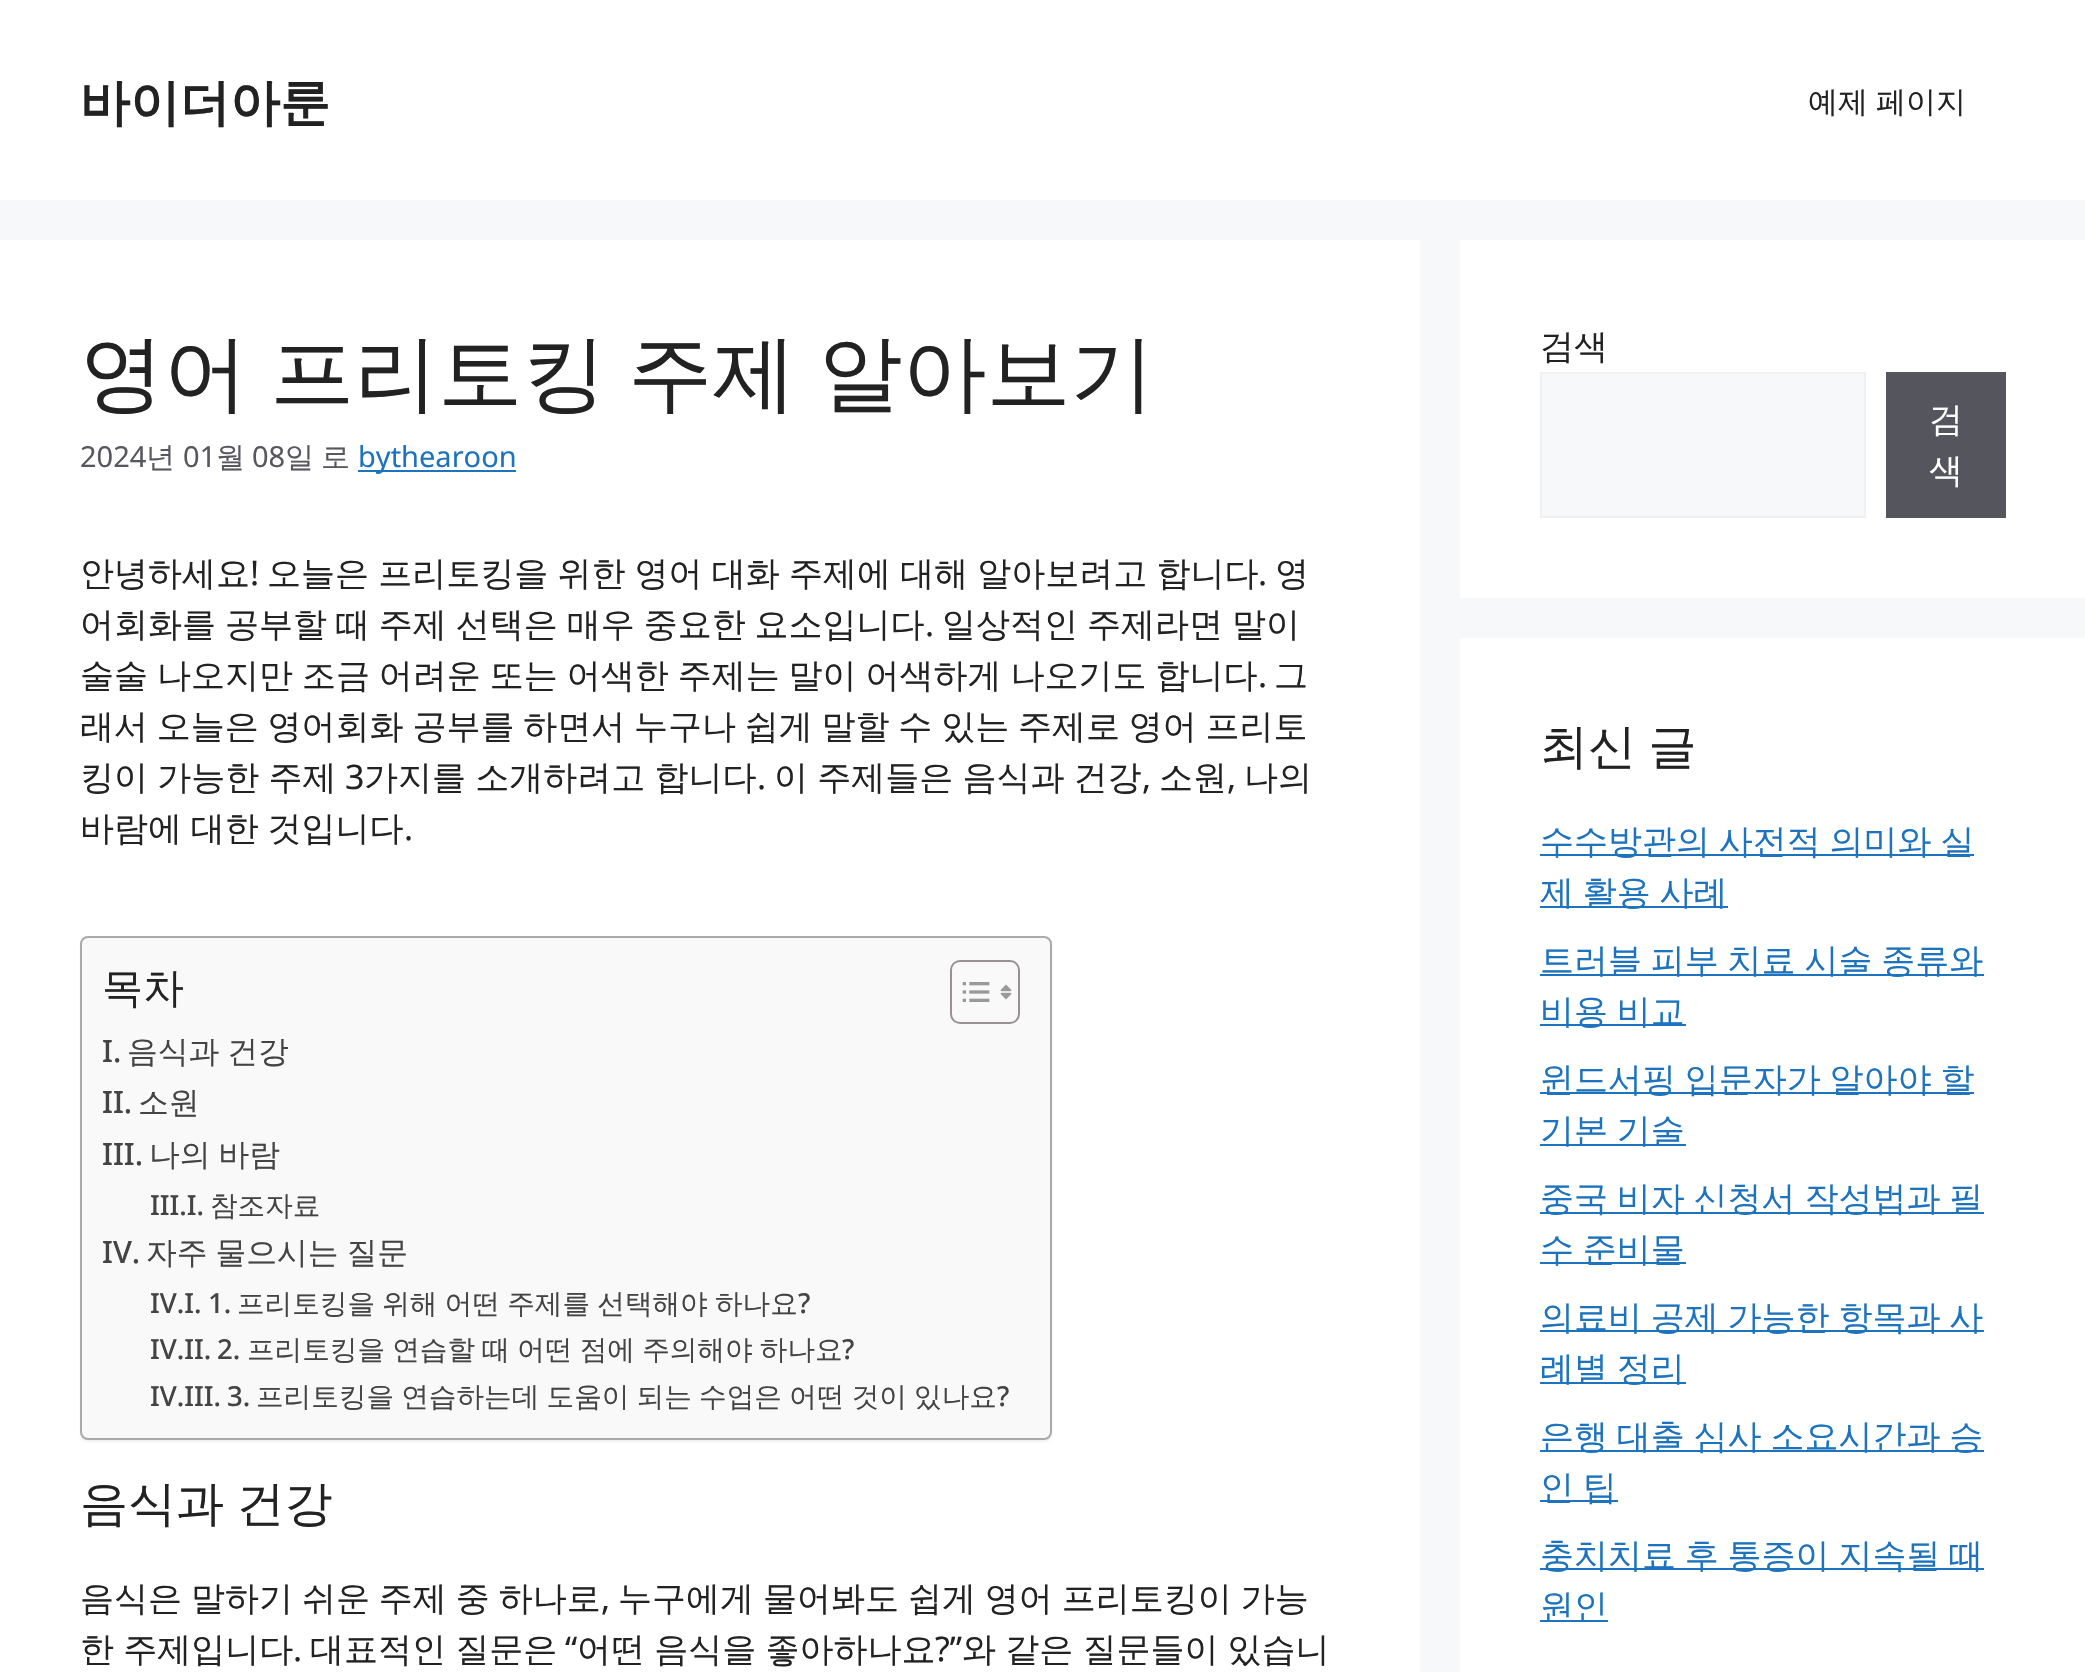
void draw(SkCanvas* canvas) {
  SkPaint paint;
  paint.setAntiAlias(true);
  auto face = [&](const char* family, int weight, float size, bool italic = false) {
    SkFontStyle style(weight, SkFontStyle::kNormal_Width,
      italic ? SkFontStyle::kItalic_Slant : SkFontStyle::kUpright_Slant);
    SkFont result(fontMgr->matchFamilyStyle(family, style), size);
    result.setSubpixel(true);
    return result;
  };
  auto writeSpaced = [&](const char* s, float x, float y, const SkFont& font, const SkPaint& ink, float letter, float word) {
    std::vector<SkGlyphID> glyphs(font.countText(s, strlen(s), SkTextEncoding::kUTF8));
    std::vector<float> xs(glyphs.size());
    font.textToGlyphs(s, strlen(s), SkTextEncoding::kUTF8, glyphs);
    font.getXPos(glyphs, xs, x);
    float extra = 0;
    for (size_t i = 0; i < glyphs.size(); i++) {
      xs[i] += extra;
      extra += letter + word * (glyphs[i] == font.unicharToGlyph(' '));
    }
    canvas->drawTextBlob(SkTextBlob::MakeFromPosHGlyphs(glyphs, xs, y, font), 0, 0, ink);
  };
  auto paste = [&](const char* path, float x, float y, float w, float h) {
    auto image = SkImages::DeferredFromEncodedData(SkData::MakeFromFileName(path));
    canvas->drawImageRect(image, SkRect::MakeXYWH(x, y, w, h), SkSamplingOptions());
  };
  canvas->clear(0xfff7f8f9);
  {
    const struct { float x, y, w, h; SkColor color; } items[] = {
      {0, 0, 2085, 200, 0xffffffff},
      {0, 240, 1420, 1432, 0xffffffff},
      {358, 470, 158, 2, 0xff1e73be},
    };
    for (auto [x, y, w, h, color] : items) {
      paint.setColor(color);
      canvas->drawRect(SkRect::MakeXYWH(x, y, w, h), paint);
    }
  }
  paint.setColor(0x0d000000);
  paint.setMaskFilter(SkMaskFilter::MakeBlur(kNormal_SkBlurStyle, 1));
  canvas->drawRoundRect(SkRect::MakeXYWH(80, 938, 972, 504), 8, 8, paint);
  paint.setMaskFilter(nullptr);
  paint.setColor(0xfff9f9f9);
  canvas->drawRoundRect(SkRect::MakeXYWH(81, 937, 970, 502), 7, 7, paint);
  paint.setStroke(true);
  paint.setStrokeWidth(2);
  paint.setColor(0xffaaaaaa);
  canvas->drawRoundRect(SkRect::MakeXYWH(81, 937, 970, 502), 7, 7, paint);
  paint.setColor(0xff999191);
  canvas->drawRoundRect(SkRect::MakeXYWH(951, 961, 68, 62), 9, 9, paint);
  paste("img/1.png", 962, 982, 28, 20);
  paste("img/2.png", 1000, 984, 12, 16);
  paint.setStroke(false);
  paint.setColor(0xffffffff);
  canvas->drawRect(SkRect::MakeXYWH(1460, 240, 625, 358), paint);
  paint.setColor(0xfff7f8f9);
  canvas->drawRect(SkRect::MakeXYWH(1541, 373, 324, 144), paint);
  paint.setStroke(true);
  paint.setColor(0xfff0f0f0);
  canvas->drawRect(SkRect::MakeXYWH(1541, 373, 324, 144), paint);
  paint.setStroke(false);
  {
    const struct { float x, y, w, h; SkColor color; } items[] = {
      {1886, 372, 120, 146, 0xff55555e},
      {1460, 638, 625, 1034, 0xffffffff},
      {1540, 854, 434, 2, 0xff1e73be},
      {1540, 906, 188, 2, 0xff1e73be},
      {1540, 974, 444, 2, 0xff1e73be},
      {1540, 1024, 146, 2, 0xff1e73be},
      {1540, 1092, 434, 2, 0xff1e73be},
      {1540, 1144, 146, 2, 0xff1e73be},
      {1540, 1212, 444, 2, 0xff1e73be},
      {1540, 1262, 146, 2, 0xff1e73be},
      {1540, 1330, 444, 2, 0xff1e73be},
      {1540, 1382, 146, 2, 0xff1e73be},
      {1540, 1450, 444, 2, 0xff1e73be},
      {1540, 1500, 78, 2, 0xff1e73be},
      {1540, 1568, 444, 2, 0xff1e73be},
      {1540, 1620, 68, 2, 0xff1e73be},
    };
    for (auto [x, y, w, h, color] : items) {
      paint.setColor(color);
      canvas->drawRect(SkRect::MakeXYWH(x, y, w, h), paint);
    }
  }
  auto f0 = face("WenQuanYi Zen Hei", 700, 50);
  paint.setColor(0xff222222);
  canvas->drawString("바이더아룬", 80, 120, f0, paint);
  auto f1 = face("WenQuanYi Zen Hei", 500, 30);
  writeSpaced("예제 페이지", 1808, 112, f1, paint, 0, -1);
  auto f2 = face("WenQuanYi Zen Hei", 500, 84);
  writeSpaced("영어 프리토킹 주제 알아보기", 80, 402, f2, paint, 0, -3);
  auto f3 = face("Noto Sans", 400, 29);
  paint.setColor(0xff575760);
  canvas->drawString("2024", 80, 467, f3, paint);
  auto f4 = face("WenQuanYi Zen Hei", 500, 29);
  canvas->drawString("년", 146, 467, f4, paint);
  canvas->drawString("01", 183, 467, f3, paint);
  canvas->drawString("월", 216, 467, f4, paint);
  canvas->drawString("08", 252, 467, f3, paint);
  canvas->drawString("일", 285, 467, f4, paint);
  canvas->drawString("로", 321, 467, f4, paint);
  paint.setColor(0xff1e73be);
  canvas->drawString("bythearoon", 358, 467, f3, paint);
  auto f5 = face("WenQuanYi Zen Hei", 500, 34);
  paint.setColor(0xff222222);
  canvas->drawString("안녕하세요", 80, 585, f5, paint);
  auto f6 = face("Noto Sans", 400, 34);
  canvas->drawString("!", 250, 585, f6, paint);
  writeSpaced("오늘은 프리토킹을 위한 영어 대화 주제에 대해 알아보려고 합니다", 267, 585, f5, paint, 0, -1);
  canvas->drawString(".", 1258, 585, f6, paint);
  canvas->drawString("영", 1275, 585, f5, paint);
  writeSpaced("어회화를 공부할 때 주제 선택은 매우 중요한 요소입니다", 80, 636, f5, paint, 0, -1.25f);
  canvas->drawString(".", 925, 636, f6, paint);
  writeSpaced("일상적인 주제라면 말이", 942, 636, f5, paint, 0, -1.25f);
  writeSpaced("술술 나오지만 조금 어려운 또는 어색한 주제는 말이 어색하게 나오기도 합니다", 80, 687, f5, paint, 0, -1.25f);
  canvas->drawString(".", 1258, 687, f6, paint);
  canvas->drawString("그", 1274, 687, f5, paint);
  writeSpaced("래서 오늘은 영어회화 공부를 하면서 누구나 쉽게 말할 수 있는 주제로 영어 프리토", 80, 738, f5, paint, 0, -1.4f);
  writeSpaced("킹이 가능한 주제", 80, 789, f5, paint, 0, -1);
  canvas->drawString("3", 345, 789, f6, paint);
  writeSpaced("가지를 소개하려고 합니다", 364, 789, f5, paint, 0, -1);
  canvas->drawString(".", 757, 789, f6, paint);
  writeSpaced("이 주제들은 음식과 건강", 774, 789, f5, paint, 0, -1);
  canvas->drawString(",", 1142, 789, f6, paint);
  canvas->drawString("소원", 1159, 789, f5, paint);
  canvas->drawString(",", 1227, 789, f6, paint);
  canvas->drawString("나의", 1244, 789, f5, paint);
  writeSpaced("바람에 대한 것입니다", 80, 840, f5, paint, 0, -1.4f);
  canvas->drawString(".", 404, 840, f6, paint);
  auto f7 = face("WenQuanYi Zen Hei", 500, 41);
  canvas->drawString("목차", 102, 1002, f7, paint);
  auto f8 = face("Noto Sans", 500, 30.75f);
  paint.setColor(0xff444444);
  canvas->drawString("I.", 102, 1062, f8, paint);
  auto f9 = face("WenQuanYi Zen Hei", 500, 30.75f);
  writeSpaced("음식과 건강", 127, 1062, f9, paint, 0, -1.25f);
  canvas->drawString("II.", 102, 1113, f8, paint);
  canvas->drawString("소원", 138, 1113, f9, paint);
  canvas->drawString("III.", 102, 1165, f8, paint);
  writeSpaced("나의 바람", 149, 1165, f9, paint, 0, -1.25f);
  auto f10 = face("Noto Sans", 500, 27.6f);
  canvas->drawString("III.I.", 150, 1215, f10, paint);
  auto f11 = face("WenQuanYi Zen Hei", 500, 27.6f);
  canvas->drawString("참조자료", 210, 1215, f11, paint);
  canvas->drawString("IV.", 102, 1263, f8, paint);
  writeSpaced("자주 물으시는 질문", 146, 1263, f9, paint, 0, -1.25f);
  canvas->drawString("IV.I.", 150, 1313, f10, paint);
  canvas->drawString("1.", 208, 1313, f10, paint);
  writeSpaced("프리토킹을 위해 어떤 주제를 선택해야 하나요", 237, 1313, f11, paint, 0, -1);
  {
    const struct { const char* s; float x, y; } items[] = {
      {"?", 798, 1313},
      {"IV.II.", 150, 1359},
      {"2.", 217, 1359},
    };
    for (auto [s, x, y] : items) {
      canvas->drawString(s, x, y, f10, paint);
    }
  }
  writeSpaced("프리토킹을 연습할 때 어떤 점에 주의해야 하나요", 247, 1359, f11, paint, 0, -1);
  {
    const struct { const char* s; float x, y; } items[] = {
      {"?", 842, 1359},
      {"IV.III.", 150, 1406},
      {"3.", 227, 1406},
    };
    for (auto [s, x, y] : items) {
      canvas->drawString(s, x, y, f10, paint);
    }
  }
  writeSpaced("프리토킹을 연습하는데 도움이 되는 수업은 어떤 것이 있나요", 256, 1406, f11, paint, 0, -1);
  canvas->drawString("?", 997, 1406, f10, paint);
  auto f12 = face("WenQuanYi Zen Hei", 500, 48);
  paint.setColor(0xff222222);
  writeSpaced("음식과 건강", 80, 1520, f12, paint, 0, -2);
  writeSpaced("음식은 말하기 쉬운 주제 중 하나로", 80, 1610, f5, paint, 0, -1.25f);
  canvas->drawString(",", 601, 1610, f6, paint);
  writeSpaced("누구에게 물어봐도 쉽게 영어 프리토킹이 가능", 618, 1610, f5, paint, 0, -1.25f);
  writeSpaced("한 주제입니다", 80, 1661, f5, paint, 0, -1);
  canvas->drawString(".", 293, 1661, f6, paint);
  writeSpaced("대표적인 질문은", 310, 1661, f5, paint, 0, -1);
  canvas->drawString("“", 565, 1661, f6, paint);
  writeSpaced("어떤 음식을 좋아하나요", 577, 1661, f5, paint, 0, -1);
  canvas->drawString("?”", 935, 1661, f6, paint);
  writeSpaced("와 같은 질문들이 있습니", 962, 1661, f5, paint, 0, -1);
  canvas->drawString("검색", 1540, 358, f5, paint);
  paint.setColor(0xffffffff);
  canvas->drawString("검", 1929, 431, f5, paint);
  canvas->drawString("색", 1929, 482, f5, paint);
  paint.setColor(0xff222222);
  writeSpaced("최신 글", 1540, 763, f12, paint, 0, -2);
  paint.setColor(0xff1e73be);
  {
    const struct { const char* s; float x, y; } items[] = {
      {"수수방관의 사전적 의미와 실", 1540, 853},
      {"제 활용 사례", 1540, 904},
      {"트러블 피부 치료 시술 종류와", 1540, 972},
      {"비용 비교", 1540, 1023},
      {"윈드서핑 입문자가 알아야 할", 1540, 1091},
      {"기본 기술", 1540, 1142},
      {"중국 비자 신청서 작성법과 필", 1540, 1210},
      {"수 준비물", 1540, 1261},
      {"의료비 공제 가능한 항목과 사", 1540, 1329},
      {"례별 정리", 1540, 1380},
      {"은행 대출 심사 소요시간과 승", 1540, 1448},
      {"인 팁", 1540, 1499},
      {"충치치료 후 통증이 지속될 때", 1540, 1567},
    };
    for (auto [s, x, y] : items) {
      writeSpaced(s, x, y, f5, paint, 0, -1.4f);
    }
  }
  canvas->drawString("원인", 1540, 1618, f5, paint);
}
